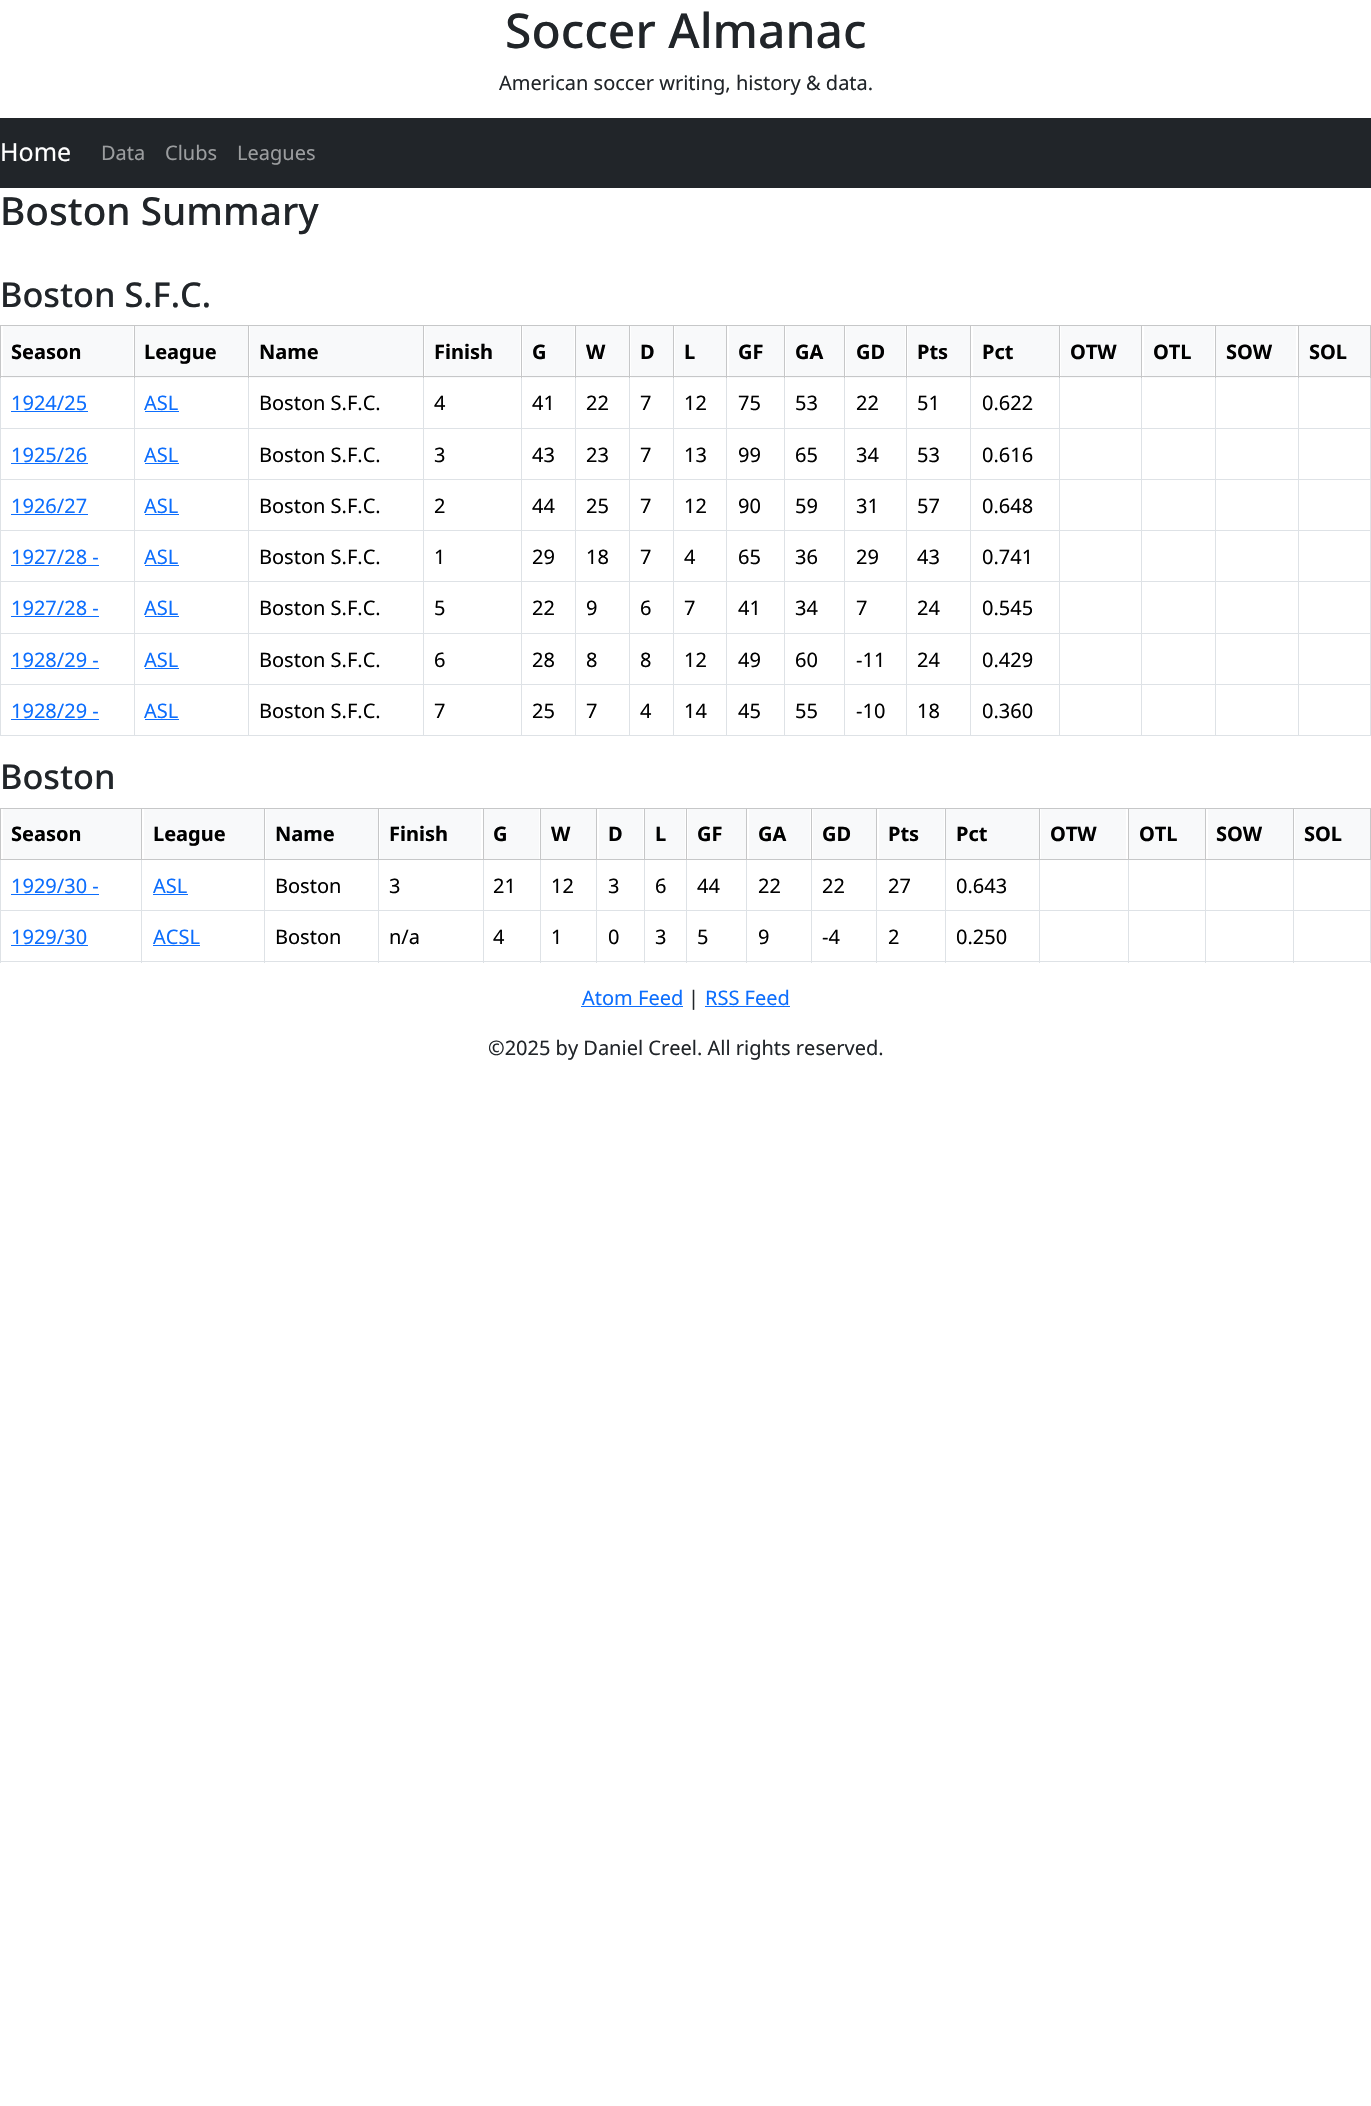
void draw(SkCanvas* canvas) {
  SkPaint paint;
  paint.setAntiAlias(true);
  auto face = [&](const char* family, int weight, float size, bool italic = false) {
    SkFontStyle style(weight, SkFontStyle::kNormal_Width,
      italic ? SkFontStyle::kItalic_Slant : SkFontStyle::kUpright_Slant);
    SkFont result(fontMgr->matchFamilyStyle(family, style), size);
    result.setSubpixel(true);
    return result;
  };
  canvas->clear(0xffffffff);
  {
    const struct { float x, y, w, h; SkColor color; } items[] = {
      {0, 118, 1371, 70, 0xff212529},
      {0, 325, 1371, 1, 0xffc6c7c8},
      {3, 326, 130, 52, 0xfff8f9fa},
      {135, 326, 113, 52, 0xfff8f9fa},
      {250, 326, 173, 52, 0xfff8f9fa},
      {425, 326, 95, 52, 0xfff8f9fa},
      {523, 326, 51, 52, 0xfff8f9fa},
      {576, 326, 53, 52, 0xfff8f9fa},
      {631, 326, 42, 52, 0xfff8f9fa},
      {675, 326, 51, 52, 0xfff8f9fa},
      {729, 326, 55, 52, 0xfff8f9fa},
      {786, 326, 58, 52, 0xfff8f9fa},
      {846, 326, 59, 52, 0xfff8f9fa},
      {908, 326, 62, 52, 0xfff8f9fa},
      {973, 326, 86, 52, 0xfff8f9fa},
      {1061, 326, 80, 52, 0xfff8f9fa},
      {1144, 326, 70, 52, 0xfff8f9fa},
      {1216, 326, 80, 52, 0xfff8f9fa},
      {1299, 326, 71, 52, 0xfff8f9fa},
      {0, 376, 1371, 1, 0xffc6c7c8},
      {0, 428, 1371, 1, 0xffdee2e6},
      {0, 479, 1371, 1, 0xffdee2e6},
      {0, 530, 1371, 1, 0xffdee2e6},
      {0, 581, 1371, 1, 0xffdee2e6},
      {0, 633, 1371, 1, 0xffdee2e6},
      {0, 684, 1371, 1, 0xffdee2e6},
      {0, 735, 1371, 1, 0xffdee2e6},
      {0, 376, 1, 360, 0xffdee2e6},
      {0, 325, 1, 53, 0xffc6c7c8},
      {134, 376, 1, 360, 0xffdee2e6},
      {134, 325, 1, 53, 0xffc6c7c8},
      {248, 376, 1, 360, 0xffdee2e6},
      {248, 325, 1, 53, 0xffc6c7c8},
      {423, 376, 1, 360, 0xffdee2e6},
      {423, 325, 1, 53, 0xffc6c7c8},
      {521, 376, 1, 360, 0xffdee2e6},
      {521, 325, 1, 53, 0xffc6c7c8},
      {575, 376, 1, 360, 0xffdee2e6},
      {575, 325, 1, 53, 0xffc6c7c8},
      {629, 376, 1, 360, 0xffdee2e6},
      {629, 325, 1, 53, 0xffc6c7c8},
      {673, 376, 1, 360, 0xffdee2e6},
      {673, 325, 1, 53, 0xffc6c7c8},
      {726, 376, 1, 360, 0xffdee2e6},
      {726, 325, 1, 53, 0xffc6c7c8},
      {784, 376, 1, 360, 0xffdee2e6},
      {784, 325, 1, 53, 0xffc6c7c8},
      {844, 376, 1, 360, 0xffdee2e6},
      {844, 325, 1, 53, 0xffc6c7c8},
      {906, 376, 1, 360, 0xffdee2e6},
      {906, 325, 1, 53, 0xffc6c7c8},
      {970, 376, 1, 360, 0xffdee2e6},
      {970, 325, 1, 53, 0xffc6c7c8},
      {1059, 376, 1, 360, 0xffdee2e6},
      {1059, 325, 1, 53, 0xffc6c7c8},
      {1141, 376, 1, 360, 0xffdee2e6},
      {1141, 325, 1, 53, 0xffc6c7c8},
      {1215, 376, 1, 360, 0xffdee2e6},
      {1215, 325, 1, 53, 0xffc6c7c8},
      {1370, 376, 1, 360, 0xffdee2e6},
      {1370, 325, 1, 53, 0xffc6c7c8},
      {1298, 376, 1, 360, 0xffdee2e6},
      {1298, 325, 1, 53, 0xffc6c7c8},
      {11, 411, 77, 1, 0xff0d6efd},
      {145, 411, 34, 1, 0xff0d6efd},
      {11, 463, 77, 1, 0xff0d6efd},
      {145, 463, 34, 1, 0xff0d6efd},
      {11, 514, 77, 1, 0xff0d6efd},
      {145, 514, 34, 1, 0xff0d6efd},
      {11, 565, 88, 1, 0xff0d6efd},
      {145, 565, 34, 1, 0xff0d6efd},
      {11, 616, 88, 1, 0xff0d6efd},
      {145, 616, 34, 1, 0xff0d6efd},
      {11, 668, 88, 1, 0xff0d6efd},
      {145, 668, 34, 1, 0xff0d6efd},
      {11, 719, 88, 1, 0xff0d6efd},
      {145, 719, 34, 1, 0xff0d6efd},
      {0, 808, 1371, 1, 0xffc6c7c8},
      {0, 859, 1371, 1, 0xffc6c7c8},
      {3, 809, 138, 50, 0xfff8f9fa},
      {0, 910, 1371, 1, 0xffdee2e6},
      {0, 961, 1371, 1, 0xffdee2e6},
      {0, 859, 1, 104, 0xffdee2e6},
      {0, 808, 1, 52, 0xffc6c7c8},
      {144, 809, 120, 50, 0xfff8f9fa},
      {141, 859, 1, 104, 0xffdee2e6},
      {141, 808, 1, 52, 0xffc6c7c8},
      {266, 809, 112, 50, 0xfff8f9fa},
      {264, 859, 1, 104, 0xffdee2e6},
      {264, 808, 1, 52, 0xffc6c7c8},
      {380, 809, 101, 50, 0xfff8f9fa},
      {378, 859, 1, 104, 0xffdee2e6},
      {378, 808, 1, 52, 0xffc6c7c8},
      {484, 809, 55, 50, 0xfff8f9fa},
      {483, 859, 1, 104, 0xffdee2e6},
      {483, 808, 1, 52, 0xffc6c7c8},
      {541, 809, 55, 50, 0xfff8f9fa},
      {540, 859, 1, 104, 0xffdee2e6},
      {540, 808, 1, 52, 0xffc6c7c8},
      {599, 809, 44, 50, 0xfff8f9fa},
      {596, 859, 1, 104, 0xffdee2e6},
      {596, 808, 1, 52, 0xffc6c7c8},
      {645, 809, 40, 50, 0xfff8f9fa},
      {644, 859, 1, 104, 0xffdee2e6},
      {644, 808, 1, 52, 0xffc6c7c8},
      {688, 809, 58, 50, 0xfff8f9fa},
      {686, 859, 1, 104, 0xffdee2e6},
      {686, 808, 1, 52, 0xffc6c7c8},
      {749, 809, 61, 50, 0xfff8f9fa},
      {746, 859, 1, 104, 0xffdee2e6},
      {746, 808, 1, 52, 0xffc6c7c8},
      {813, 809, 63, 50, 0xfff8f9fa},
      {811, 859, 1, 104, 0xffdee2e6},
      {811, 808, 1, 52, 0xffc6c7c8},
      {879, 809, 65, 50, 0xfff8f9fa},
      {876, 859, 1, 104, 0xffdee2e6},
      {876, 808, 1, 52, 0xffc6c7c8},
      {946, 809, 93, 50, 0xfff8f9fa},
      {945, 859, 1, 104, 0xffdee2e6},
      {945, 808, 1, 52, 0xffc6c7c8},
      {1041, 809, 85, 50, 0xfff8f9fa},
      {1039, 859, 1, 104, 0xffdee2e6},
      {1039, 808, 1, 52, 0xffc6c7c8},
      {1129, 809, 76, 50, 0xfff8f9fa},
      {1128, 859, 1, 104, 0xffdee2e6},
      {1128, 808, 1, 52, 0xffc6c7c8},
      {1208, 809, 85, 50, 0xfff8f9fa},
      {1205, 859, 1, 104, 0xffdee2e6},
      {1205, 808, 1, 52, 0xffc6c7c8},
      {1295, 809, 75, 50, 0xfff8f9fa},
      {1370, 859, 1, 104, 0xffdee2e6},
      {1370, 808, 1, 52, 0xffc6c7c8},
      {1293, 859, 1, 104, 0xffdee2e6},
      {1293, 808, 1, 52, 0xffc6c7c8},
      {11, 894, 88, 1, 0xff0d6efd},
      {153, 894, 35, 1, 0xff0d6efd},
      {11, 945, 77, 1, 0xff0d6efd},
      {153, 945, 47, 1, 0xff0d6efd},
      {581, 1006, 102, 1, 0xff0d6efd},
      {705, 1006, 85, 1, 0xff0d6efd},
    };
    for (auto [x, y, w, h, color] : items) {
      paint.setColor(color);
      canvas->drawRect(SkRect::MakeXYWH(x, y, w, h), paint);
    }
  }
  auto f0 = face("Noto Sans", 500, 48);
  paint.setColor(0xff212529);
  canvas->drawString("Soccer Almanac", 505, 48, f0, paint);
  auto f1 = face("Noto Sans", 400, 20);
  canvas->drawString("American soccer writing, history & data.", 499, 90, f1, paint);
  auto f2 = face("Noto Sans", 400, 25);
  paint.setColor(0xffffffff);
  canvas->drawString("Home", 0, 161, f2, paint);
  paint.setColor(0xff9b9d9f);
  {
    const struct { const char* s; float x, y; } items[] = {
      {"Data", 101, 160},
      {"Clubs", 165, 160},
      {"Leagues", 237, 160},
    };
    for (auto [s, x, y] : items) {
      canvas->drawString(s, x, y, f1, paint);
    }
  }
  auto f3 = face("Noto Sans", 500, 38.75f);
  paint.setColor(0xff212529);
  canvas->drawString("Boston Summary", 0, 225, f3, paint);
  auto f4 = face("Noto Sans", 500, 34.25f);
  canvas->drawString("Boston S.F.C.", 0, 307, f4, paint);
  auto f5 = face("Noto Sans", 700, 20);
  paint.setColor(0xff000000);
  {
    const struct { const char* s; float x, y; } items[] = {
      {"Season", 11, 359},
      {"League", 144, 359},
      {"Name", 259, 359},
      {"Finish", 434, 359},
      {"G", 532, 359},
      {"W", 586, 359},
      {"D", 640, 359},
      {"L", 684, 359},
      {"GF", 738, 359},
      {"GA", 795, 359},
      {"GD", 856, 359},
      {"Pts", 917, 359},
      {"Pct", 982, 359},
      {"OTW", 1070, 359},
      {"OTL", 1153, 359},
      {"SOW", 1226, 359},
      {"SOL", 1309, 359},
    };
    for (auto [s, x, y] : items) {
      canvas->drawString(s, x, y, f5, paint);
    }
  }
  paint.setColor(0xff0d6efd);
  canvas->drawString("1924/25", 11, 410, f1, paint);
  canvas->drawString("ASL", 144, 410, f1, paint);
  paint.setColor(0xff000000);
  {
    const struct { const char* s; float x, y; } items[] = {
      {"Boston S.F.C.", 259, 410},
      {"4", 434, 410},
      {"41", 532, 410},
      {"22", 586, 410},
      {"7", 640, 410},
      {"12", 684, 410},
      {"75", 738, 410},
      {"53", 795, 410},
      {"22", 856, 410},
      {"51", 917, 410},
      {"0.622", 982, 410},
    };
    for (auto [s, x, y] : items) {
      canvas->drawString(s, x, y, f1, paint);
    }
  }
  paint.setColor(0xff0d6efd);
  canvas->drawString("1925/26", 11, 462, f1, paint);
  canvas->drawString("ASL", 144, 462, f1, paint);
  paint.setColor(0xff000000);
  {
    const struct { const char* s; float x, y; } items[] = {
      {"Boston S.F.C.", 259, 462},
      {"3", 434, 462},
      {"43", 532, 462},
      {"23", 586, 462},
      {"7", 640, 462},
      {"13", 684, 462},
      {"99", 738, 462},
      {"65", 795, 462},
      {"34", 856, 462},
      {"53", 917, 462},
      {"0.616", 982, 462},
    };
    for (auto [s, x, y] : items) {
      canvas->drawString(s, x, y, f1, paint);
    }
  }
  paint.setColor(0xff0d6efd);
  canvas->drawString("1926/27", 11, 513, f1, paint);
  canvas->drawString("ASL", 144, 513, f1, paint);
  paint.setColor(0xff000000);
  {
    const struct { const char* s; float x, y; } items[] = {
      {"Boston S.F.C.", 259, 513},
      {"2", 434, 513},
      {"44", 532, 513},
      {"25", 586, 513},
      {"7", 640, 513},
      {"12", 684, 513},
      {"90", 738, 513},
      {"59", 795, 513},
      {"31", 856, 513},
      {"57", 917, 513},
      {"0.648", 982, 513},
    };
    for (auto [s, x, y] : items) {
      canvas->drawString(s, x, y, f1, paint);
    }
  }
  paint.setColor(0xff0d6efd);
  canvas->drawString("1927/28 -", 11, 564, f1, paint);
  canvas->drawString("ASL", 144, 564, f1, paint);
  paint.setColor(0xff000000);
  {
    const struct { const char* s; float x, y; } items[] = {
      {"Boston S.F.C.", 259, 564},
      {"1", 434, 564},
      {"29", 532, 564},
      {"18", 586, 564},
      {"7", 640, 564},
      {"4", 684, 564},
      {"65", 738, 564},
      {"36", 795, 564},
      {"29", 856, 564},
      {"43", 917, 564},
      {"0.741", 982, 564},
    };
    for (auto [s, x, y] : items) {
      canvas->drawString(s, x, y, f1, paint);
    }
  }
  paint.setColor(0xff0d6efd);
  canvas->drawString("1927/28 -", 11, 615, f1, paint);
  canvas->drawString("ASL", 144, 615, f1, paint);
  paint.setColor(0xff000000);
  {
    const struct { const char* s; float x, y; } items[] = {
      {"Boston S.F.C.", 259, 615},
      {"5", 434, 615},
      {"22", 532, 615},
      {"9", 586, 615},
      {"6", 640, 615},
      {"7", 684, 615},
      {"41", 738, 615},
      {"34", 795, 615},
      {"7", 856, 615},
      {"24", 917, 615},
      {"0.545", 982, 615},
    };
    for (auto [s, x, y] : items) {
      canvas->drawString(s, x, y, f1, paint);
    }
  }
  paint.setColor(0xff0d6efd);
  canvas->drawString("1928/29 -", 11, 667, f1, paint);
  canvas->drawString("ASL", 144, 667, f1, paint);
  paint.setColor(0xff000000);
  {
    const struct { const char* s; float x, y; } items[] = {
      {"Boston S.F.C.", 259, 667},
      {"6", 434, 667},
      {"28", 532, 667},
      {"8", 586, 667},
      {"8", 640, 667},
      {"12", 684, 667},
      {"49", 738, 667},
      {"60", 795, 667},
      {"-11", 856, 667},
      {"24", 917, 667},
      {"0.429", 982, 667},
    };
    for (auto [s, x, y] : items) {
      canvas->drawString(s, x, y, f1, paint);
    }
  }
  paint.setColor(0xff0d6efd);
  canvas->drawString("1928/29 -", 11, 718, f1, paint);
  canvas->drawString("ASL", 144, 718, f1, paint);
  paint.setColor(0xff000000);
  {
    const struct { const char* s; float x, y; } items[] = {
      {"Boston S.F.C.", 259, 718},
      {"7", 434, 718},
      {"25", 532, 718},
      {"7", 586, 718},
      {"4", 640, 718},
      {"14", 684, 718},
      {"45", 738, 718},
      {"55", 795, 718},
      {"-10", 856, 718},
      {"18", 917, 718},
      {"0.360", 982, 718},
    };
    for (auto [s, x, y] : items) {
      canvas->drawString(s, x, y, f1, paint);
    }
  }
  paint.setColor(0xff212529);
  canvas->drawString("Boston", 0, 789, f4, paint);
  paint.setColor(0xff000000);
  {
    const struct { const char* s; float x, y; } items[] = {
      {"Season", 11, 841},
      {"League", 153, 841},
      {"Name", 275, 841},
      {"Finish", 389, 841},
      {"G", 493, 841},
      {"W", 551, 841},
      {"D", 608, 841},
      {"L", 655, 841},
      {"GF", 697, 841},
      {"GA", 758, 841},
      {"GD", 822, 841},
      {"Pts", 888, 841},
      {"Pct", 956, 841},
      {"OTW", 1050, 841},
      {"OTL", 1139, 841},
      {"SOW", 1216, 841},
      {"SOL", 1304, 841},
    };
    for (auto [s, x, y] : items) {
      canvas->drawString(s, x, y, f5, paint);
    }
  }
  paint.setColor(0xff0d6efd);
  canvas->drawString("1929/30 -", 11, 893, f1, paint);
  canvas->drawString("ASL", 153, 893, f1, paint);
  paint.setColor(0xff000000);
  {
    const struct { const char* s; float x, y; } items[] = {
      {"Boston", 275, 893},
      {"3", 389, 893},
      {"21", 493, 893},
      {"12", 551, 893},
      {"3", 608, 893},
      {"6", 655, 893},
      {"44", 697, 893},
      {"22", 758, 893},
      {"22", 822, 893},
      {"27", 888, 893},
      {"0.643", 956, 893},
    };
    for (auto [s, x, y] : items) {
      canvas->drawString(s, x, y, f1, paint);
    }
  }
  paint.setColor(0xff0d6efd);
  canvas->drawString("1929/30", 11, 944, f1, paint);
  canvas->drawString("ACSL", 153, 944, f1, paint);
  paint.setColor(0xff000000);
  {
    const struct { const char* s; float x, y; } items[] = {
      {"Boston", 275, 944},
      {"n/a", 389, 944},
      {"4", 493, 944},
      {"1", 551, 944},
      {"0", 608, 944},
      {"3", 655, 944},
      {"5", 697, 944},
      {"9", 758, 944},
      {"-4", 822, 944},
      {"2", 888, 944},
      {"0.250", 956, 944},
    };
    for (auto [s, x, y] : items) {
      canvas->drawString(s, x, y, f1, paint);
    }
  }
  paint.setColor(0xff0d6efd);
  canvas->drawString("Atom Feed", 582, 1005, f1, paint);
  paint.setColor(0xff212529);
  canvas->drawString("|", 688, 1005, f1, paint);
  paint.setColor(0xff0d6efd);
  canvas->drawString("RSS Feed", 705, 1005, f1, paint);
  paint.setColor(0xff212529);
  canvas->drawString("©2025 by Daniel Creel. All rights reserved.", 488, 1055, f1, paint);
}
